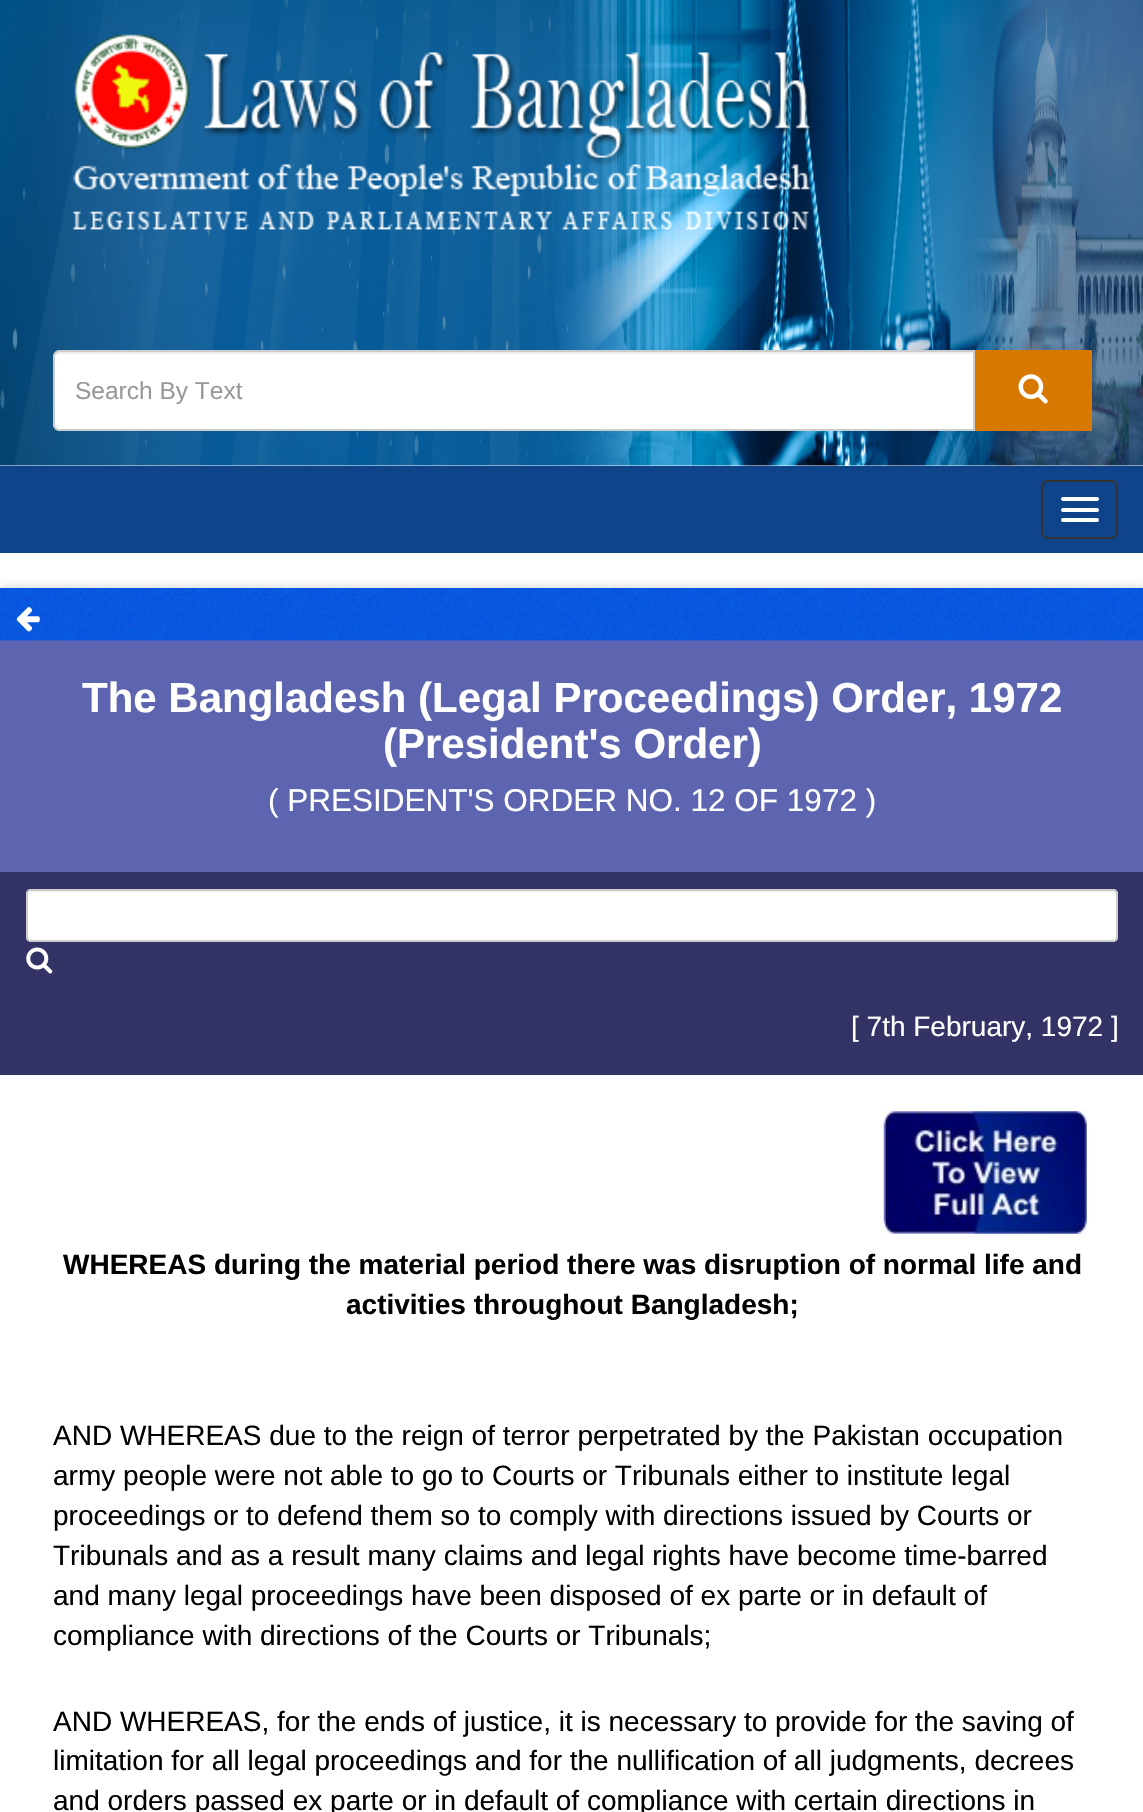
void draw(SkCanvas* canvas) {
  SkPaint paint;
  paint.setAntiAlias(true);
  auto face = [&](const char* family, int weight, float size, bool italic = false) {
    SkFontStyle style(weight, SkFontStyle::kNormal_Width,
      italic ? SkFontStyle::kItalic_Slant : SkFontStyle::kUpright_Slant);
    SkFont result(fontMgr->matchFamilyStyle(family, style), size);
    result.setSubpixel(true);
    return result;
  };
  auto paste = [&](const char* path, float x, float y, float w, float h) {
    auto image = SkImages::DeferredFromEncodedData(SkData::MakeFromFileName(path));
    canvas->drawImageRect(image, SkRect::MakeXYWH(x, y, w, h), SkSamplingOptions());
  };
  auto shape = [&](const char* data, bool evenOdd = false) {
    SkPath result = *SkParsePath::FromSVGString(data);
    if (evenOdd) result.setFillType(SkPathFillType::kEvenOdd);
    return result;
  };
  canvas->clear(0xffffffff);
  paste("img/1.png", 0, 0, 1143, 466);
  paste("img/2.png", 73, 34, 740, 196);
  paint.setColor(0xffffffff);
  canvas->drawPath(shape("M60 350H975V431H60C56 431 53 428 53 424V357C53 353 56 350 60 350Z"), paint);
  paint.setColor(0xffececec);
  canvas->drawPath(shape("M60 354H973V352H59C55 352 54 356 54 359C54 356 57 354 60 354Z"), paint);
  paint.setStroke(true);
  paint.setStrokeWidth(2);
  paint.setColor(0xffcccccc);
  canvas->drawPath(shape("M60 351H974V430H60C56.5 430 54 427.5 54 424V357C54 353.5 56.5 351 60 351Z"), paint);
  paint.setStroke(false);
  paint.setColor(0xffd77800);
  canvas->drawRect(SkRect::MakeXYWH(975, 350, 117, 81), paint);
  paste("img/3.png", 1018, 374, 30, 30);
  paint.setColor(0xff0f448b);
  canvas->drawRect(SkRect::MakeXYWH(0, 466, 1143, 87), paint);
  paint.setStroke(true);
  paint.setColor(0xff333333);
  canvas->drawRoundRect(SkRect::MakeXYWH(1042, 481, 75, 57), 6, 6, paint);
  paint.setStroke(false);
  paint.setColor(0xffffffff);
  canvas->drawRoundRect(SkRect::MakeXYWH(1061, 497, 38, 4), 2, 2, paint);
  canvas->drawRoundRect(SkRect::MakeXYWH(1061, 508, 38, 4), 2, 2, paint);
  canvas->drawRoundRect(SkRect::MakeXYWH(1061, 518, 38, 4), 2, 2, paint);
  canvas->save();
  canvas->clipRect(SkRect::MakeXYWH(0, 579, 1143, 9));
  paint.setColor(0xffcccccc);
  paint.setMaskFilter(SkMaskFilter::MakeBlur(kNormal_SkBlurStyle, 4.5f));
  canvas->drawRect(SkRect::MakeXYWH(0, 588, 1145, 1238), paint);
  paint.setMaskFilter(nullptr);
  canvas->restore();
  paint.setColor(0xff5d65b0);
  canvas->drawRect(SkRect::MakeXYWH(0, 640, 1143, 232), paint);
  paste("img/4.png", 0, 588, 1143, 53);
  paste("img/5.png", 16, 607, 24, 25);
  paint.setColor(0xff333366);
  canvas->drawRect(SkRect::MakeXYWH(0, 872, 1143, 203), paint);
  paint.setColor(0xffffffff);
  canvas->drawRoundRect(SkRect::MakeXYWH(26, 889, 1092, 53), 5, 5, paint);
  paint.setColor(0xffececec);
  canvas->drawPath(shape("M32 892H1113C1115 892 1116 894 1116 896V939C1117 938 1117 937 1117 936V895C1117 893 1115 891 1113 891H32C30 891 28 893 28 895V896C28 894 30 892 32 892Z"), paint);
  paint.setStroke(true);
  paint.setColor(0xffcccccc);
  canvas->drawRoundRect(SkRect::MakeXYWH(27, 890, 1090, 51), 4, 4, paint);
  paste("img/6.png", 26, 947, 27, 27);
  paste("img/7.png", 883, 1111, 204, 123);
  auto f0 = face("Liberation Sans", 400, 24.5f);
  paint.setStroke(false);
  paint.setColor(0xff999999);
  canvas->drawString("Search By Text", 75, 399, f0, paint);
  auto f1 = face("Liberation Sans", 700, 42);
  paint.setColor(0xffffffff);
  canvas->drawString("The Bangladesh (Legal Proceedings) Order, 1972", 82, 712, f1, paint);
  canvas->drawString("(President's Order)", 383, 758, f1, paint);
  auto f2 = face("Liberation Sans", 400, 31.5f);
  canvas->drawString("( PRESIDENT'S ORDER NO. 12 OF 1972 )", 268, 811, f2, paint);
  auto f3 = face("Liberation Sans", 400, 28);
  canvas->drawString("[ 7th February, 1972 ]", 851, 1036, f3, paint);
  auto f4 = face("Liberation Sans", 700, 28);
  paint.setColor(0xff000000);
  canvas->drawString("WHEREAS during the material period there was disruption of normal life and", 63, 1274, f4, paint);
  canvas->drawString("activities throughout Bangladesh;", 346, 1314, f4, paint);
  {
    const struct { const char* s; float x, y; } items[] = {
      {"AND WHEREAS due to the reign of terror perpetrated by the Pakistan occupation", 53, 1445},
      {"army people were not able to go to Courts or Tribunals either to institute legal", 53, 1485},
      {"proceedings or to defend them so to comply with directions issued by Courts or", 53, 1525},
      {"Tribunals and as a result many claims and legal rights have become time-barred", 53, 1565},
      {"and many legal proceedings have been disposed of ex parte or in default of", 53, 1605},
      {"compliance with directions of the Courts or Tribunals;", 53, 1645},
      {"AND WHEREAS, for the ends of justice, it is necessary to provide for the saving of", 53, 1731},
      {"limitation for all legal proceedings and for the nullification of all judgments, decrees", 53, 1770},
      {"and orders passed ex parte or in default of compliance with certain directions in", 53, 1810},
    };
    for (auto [s, x, y] : items) {
      canvas->drawString(s, x, y, f3, paint);
    }
  }
}
